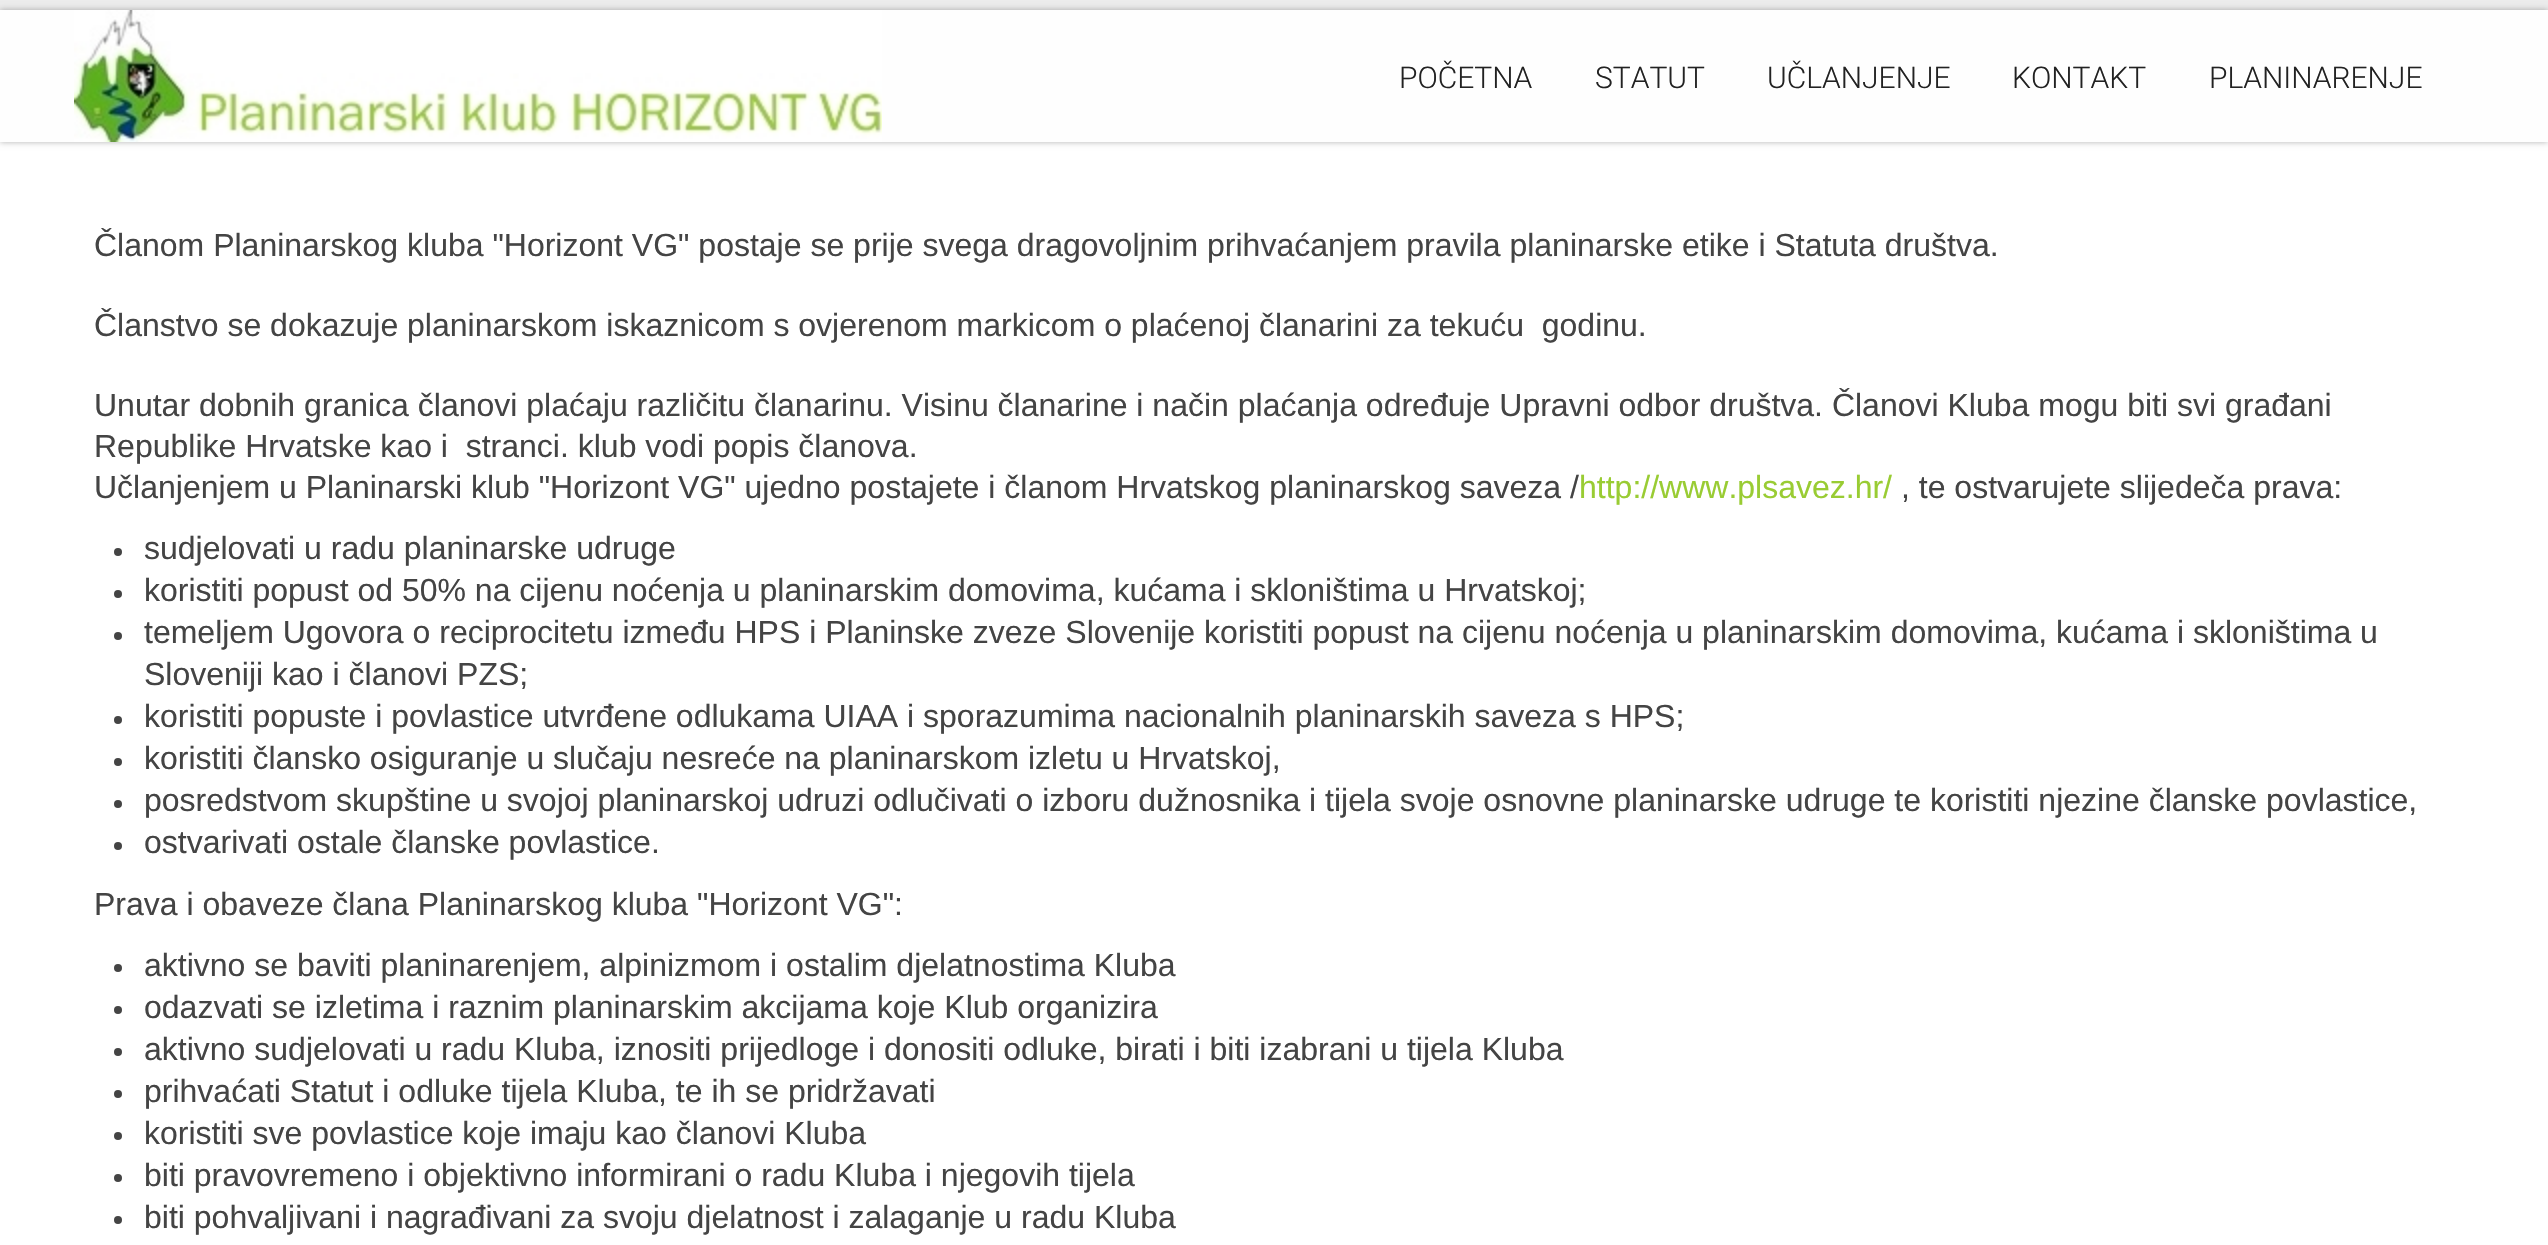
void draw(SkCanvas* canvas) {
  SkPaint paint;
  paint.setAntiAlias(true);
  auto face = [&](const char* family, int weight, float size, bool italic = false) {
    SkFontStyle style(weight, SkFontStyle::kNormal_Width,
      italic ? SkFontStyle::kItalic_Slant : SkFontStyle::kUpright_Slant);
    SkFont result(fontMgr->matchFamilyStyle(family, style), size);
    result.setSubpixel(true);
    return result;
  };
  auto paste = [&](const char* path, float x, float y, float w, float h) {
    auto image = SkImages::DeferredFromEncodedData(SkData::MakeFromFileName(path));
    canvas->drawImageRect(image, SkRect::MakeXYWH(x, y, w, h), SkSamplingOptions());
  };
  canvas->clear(0xffececec);
  paint.setColor(0xffffffff);
  canvas->drawRect(SkRect::MakeXYWH(0, 142, 2548, 1103), paint);
  paint.setColor(0x4d000000);
  paint.setMaskFilter(SkMaskFilter::MakeBlur(kNormal_SkBlurStyle, 3));
  canvas->drawRect(SkRect::MakeXYWH(0, 10, 2548, 132), paint);
  paint.setMaskFilter(nullptr);
  paint.setColor(0xfffefefe);
  canvas->drawRect(SkRect::MakeXYWH(0, 10, 2548, 132), paint);
  paste("img/1.png", 74, 10, 808, 132);
  paint.setColor(0xff444444);
  canvas->drawCircle(118, 552, 4, paint);
  canvas->drawCircle(118, 594, 4, paint);
  canvas->drawCircle(118, 636, 4, paint);
  canvas->drawCircle(118, 720, 4, paint);
  canvas->drawCircle(118, 762, 4, paint);
  canvas->drawCircle(118, 804, 4, paint);
  canvas->drawCircle(118, 846, 4, paint);
  canvas->drawCircle(118, 968, 4, paint);
  canvas->drawCircle(118, 1010, 4, paint);
  canvas->drawCircle(118, 1052, 4, paint);
  canvas->drawCircle(118, 1094, 4, paint);
  canvas->drawCircle(118, 1136, 4, paint);
  canvas->drawCircle(118, 1178, 4, paint);
  canvas->drawCircle(118, 1220, 4, paint);
  auto f0 = face("Roboto", 300, 30);
  paint.setColor(0xff222222);
  {
    const struct { const char* s; float x, y; } items[] = {
      {"POČETNA", 1399, 88},
      {"STATUT", 1595, 88},
      {"UČLANJENJE", 1767, 88},
      {"KONTAKT", 2012, 88},
      {"PLANINARENJE", 2209, 88},
    };
    for (auto [s, x, y] : items) {
      canvas->drawString(s, x, y, f0, paint);
    }
  }
  auto f1 = face("Liberation Sans", 400, 32);
  paint.setColor(0xff444444);
  {
    const struct { const char* s; float x, y; } items[] = {
      {"Članom Planinarskog kluba \"Horizont VG\" postaje se prije svega dragovoljnim prihvaćanjem pravila planinarske etike i Statuta društva.", 94, 256},
      {"Članstvo se dokazuje planinarskom iskaznicom s ovjerenom markicom o plaćenoj članarini za tekuću  godinu.", 94, 336},
      {"Unutar dobnih granica članovi plaćaju različitu članarinu. Visinu članarine i način plaćanja određuje Upravni odbor društva. Članovi Kluba mogu biti svi građani", 94, 416},
      {"Republike Hrvatske kao i  stranci. klub vodi popis članova.", 94, 457},
      {"Učlanjenjem u Planinarski klub \"Horizont VG\" ujedno postajete i članom Hrvatskog planinarskog saveza /", 94, 498},
    };
    for (auto [s, x, y] : items) {
      canvas->drawString(s, x, y, f1, paint);
    }
  }
  paint.setColor(0xff99cc33);
  canvas->drawString("http://www.plsavez.hr/", 1579, 498, f1, paint);
  paint.setColor(0xff444444);
  {
    const struct { const char* s; float x, y; } items[] = {
      {", te ostvarujete slijedeča prava:", 1901, 498},
      {"sudjelovati u radu planinarske udruge", 144, 559},
      {"koristiti popust od 50% na cijenu noćenja u planinarskim domovima, kućama i skloništima u Hrvatskoj;", 144, 601},
      {"temeljem Ugovora o reciprocitetu između HPS i Planinske zveze Slovenije koristiti popust na cijenu noćenja u planinarskim domovima, kućama i skloništima u", 144, 643},
      {"Sloveniji kao i članovi PZS;", 144, 685},
      {"koristiti popuste i povlastice utvrđene odlukama UIAA i sporazumima nacionalnih planinarskih saveza s HPS;", 144, 727},
      {"koristiti člansko osiguranje u slučaju nesreće na planinarskom izletu u Hrvatskoj,", 144, 769},
      {"posredstvom skupštine u svojoj planinarskoj udruzi odlučivati o izboru dužnosnika i tijela svoje osnovne planinarske udruge te koristiti njezine članske povlastice,", 144, 811},
      {"ostvarivati ostale članske povlastice.", 144, 853},
      {"Prava i obaveze člana Planinarskog kluba \"Horizont VG\":", 94, 915},
      {"aktivno se baviti planinarenjem, alpinizmom i ostalim djelatnostima Kluba", 144, 976},
      {"odazvati se izletima i raznim planinarskim akcijama koje Klub organizira", 144, 1018},
      {"aktivno sudjelovati u radu Kluba, iznositi prijedloge i donositi odluke, birati i biti izabrani u tijela Kluba", 144, 1060},
      {"prihvaćati Statut i odluke tijela Kluba, te ih se pridržavati", 144, 1102},
      {"koristiti sve povlastice koje imaju kao članovi Kluba", 144, 1144},
      {"biti pravovremeno i objektivno informirani o radu Kluba i njegovih tijela", 144, 1186},
      {"biti pohvaljivani i nagrađivani za svoju djelatnost i zalaganje u radu Kluba", 144, 1228},
    };
    for (auto [s, x, y] : items) {
      canvas->drawString(s, x, y, f1, paint);
    }
  }
}
